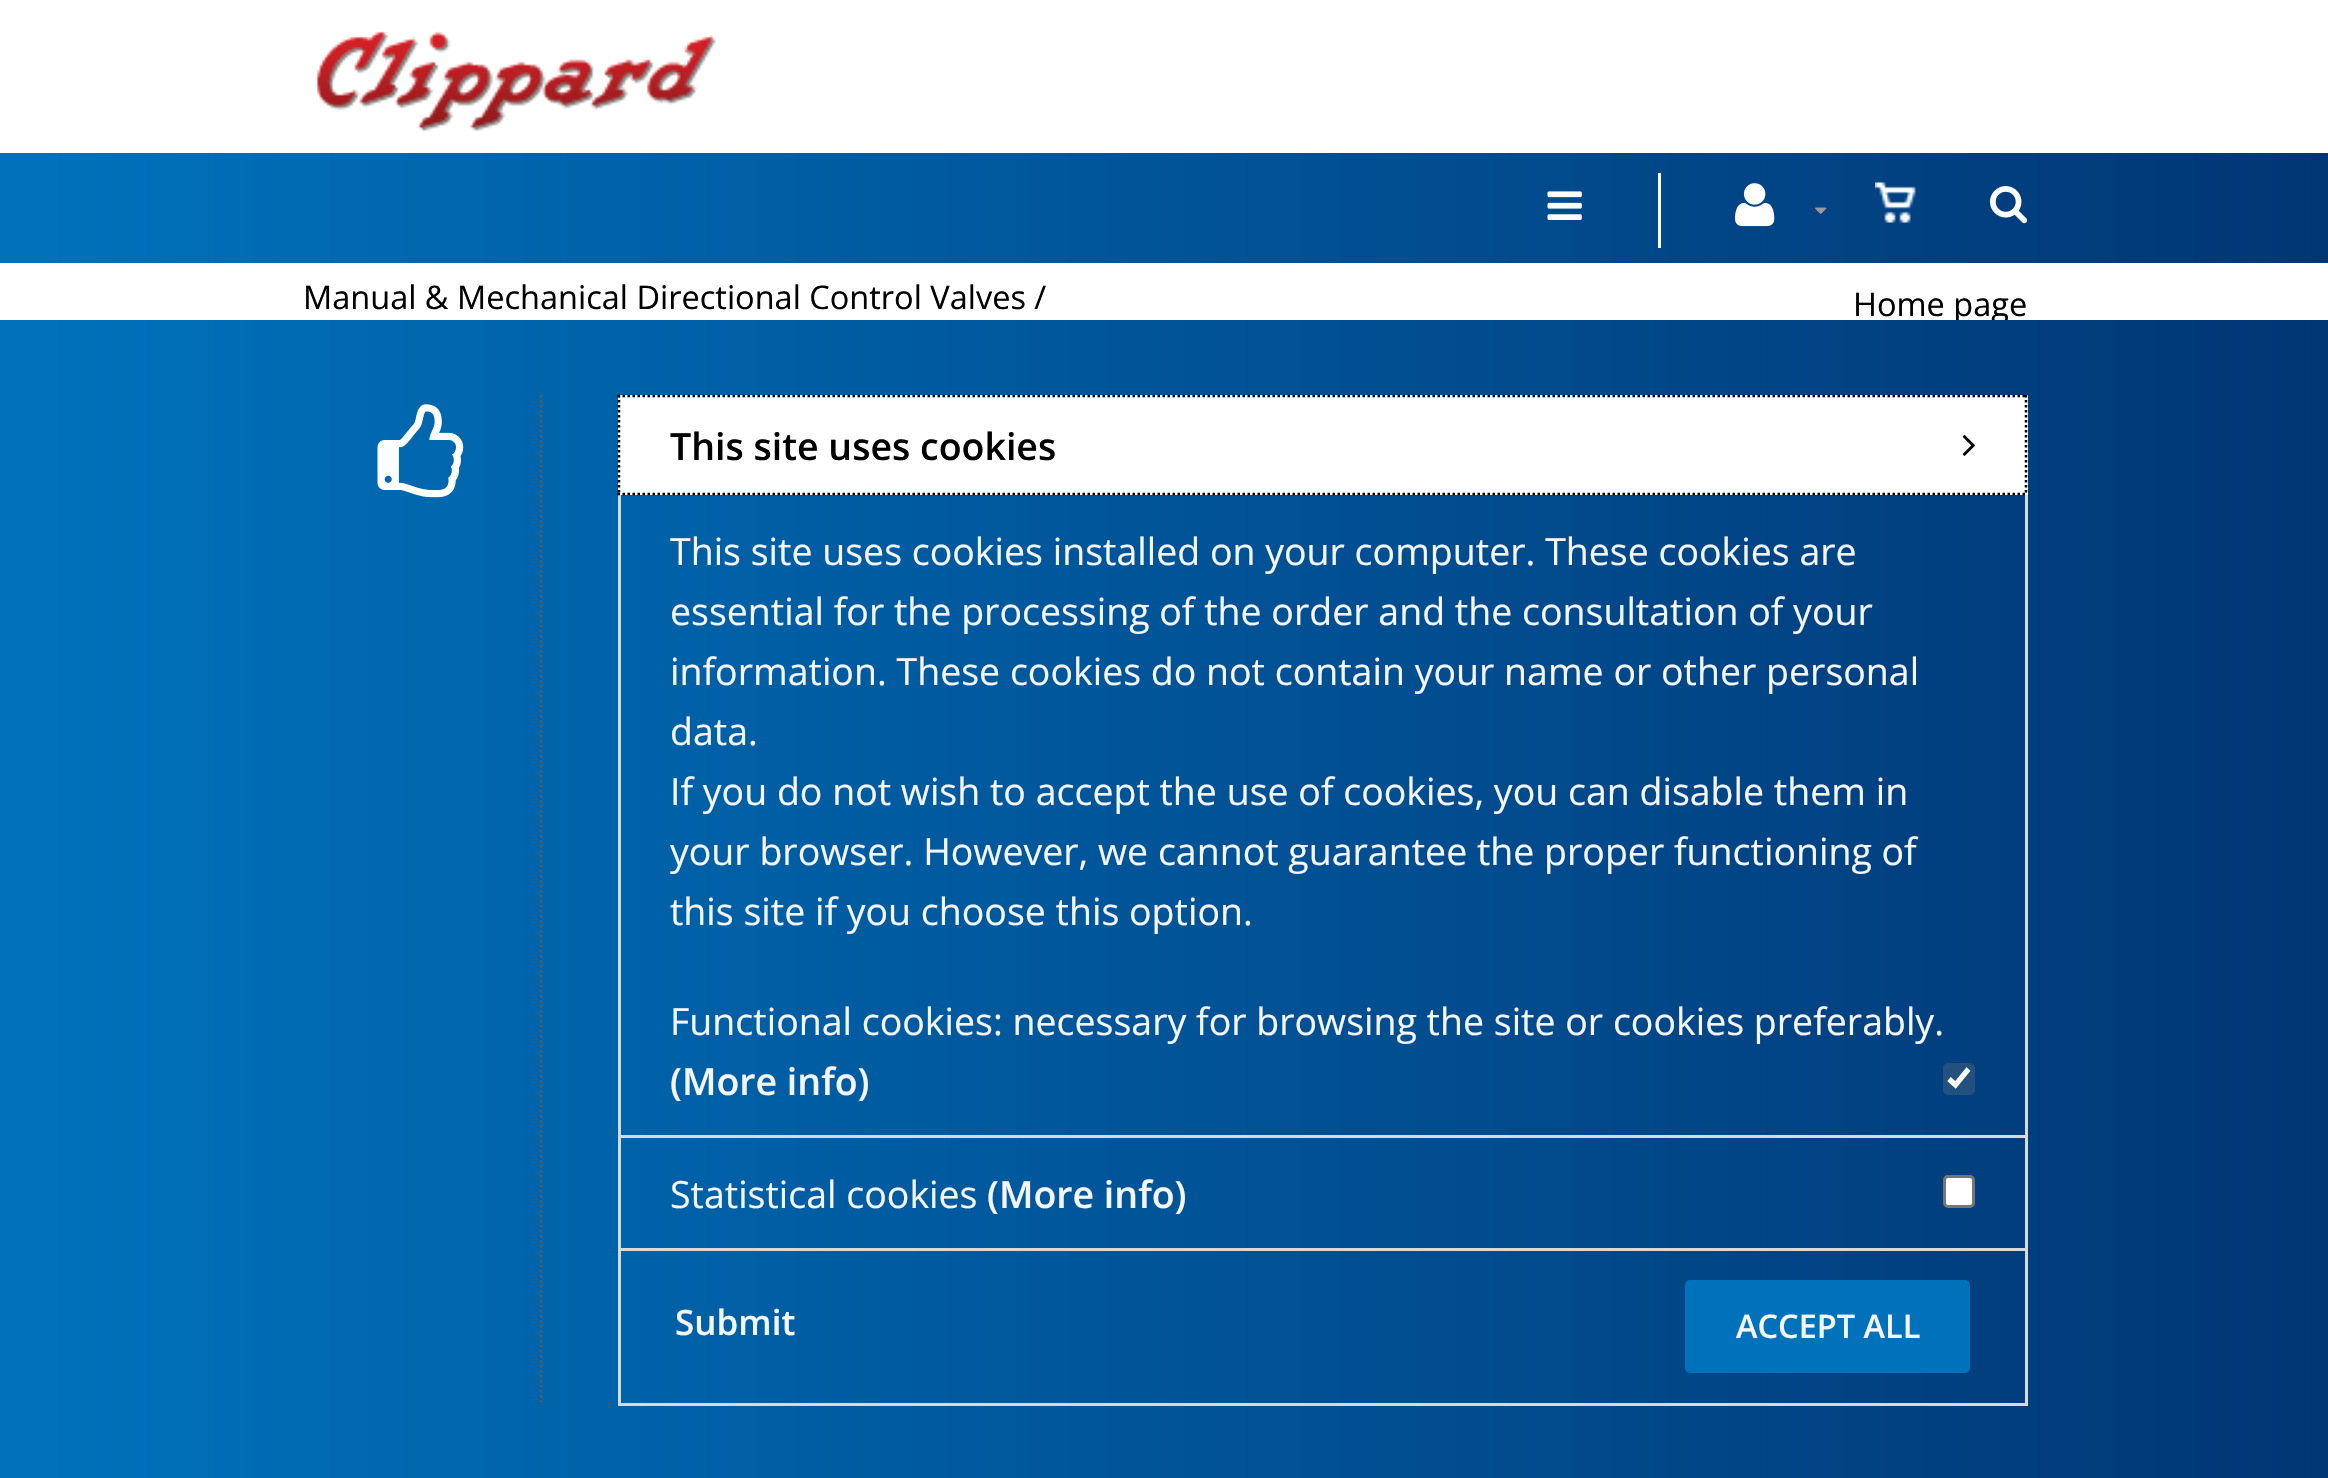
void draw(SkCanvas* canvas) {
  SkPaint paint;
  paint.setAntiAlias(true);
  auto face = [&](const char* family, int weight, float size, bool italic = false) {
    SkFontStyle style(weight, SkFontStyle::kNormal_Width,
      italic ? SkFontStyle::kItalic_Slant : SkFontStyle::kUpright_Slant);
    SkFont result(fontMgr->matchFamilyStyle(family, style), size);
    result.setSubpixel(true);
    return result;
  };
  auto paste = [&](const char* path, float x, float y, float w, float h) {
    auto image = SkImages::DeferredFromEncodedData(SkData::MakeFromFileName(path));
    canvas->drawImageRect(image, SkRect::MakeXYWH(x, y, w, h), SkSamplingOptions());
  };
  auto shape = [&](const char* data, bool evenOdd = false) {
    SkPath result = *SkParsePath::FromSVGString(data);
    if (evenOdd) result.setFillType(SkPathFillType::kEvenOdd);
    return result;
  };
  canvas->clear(0xffffffff);
  {
    const SkColor colors[] = {0xff0072bc, 0xff013674};
    const float stops[] = {0, 1};
    const SkPoint ends[] = {{0, 131}, {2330, 131}};
    paint.setShader(SkGradientShader::MakeLinear(ends, colors, stops, 2, SkTileMode::kClamp));
    paint.setAlpha(255);
  }
  canvas->drawRect(SkRect::MakeXYWH(0, 153, 2328, 110), paint);
  paste("img/1.png", 316, 31, 400, 100);
  paste("img/2.png", 1547, 191, 35, 29);
  paint.setShader(nullptr);
  paint.setColor(0xffffffff);
  canvas->drawRect(SkRect::MakeXYWH(1658, 173, 3, 75), paint);
  paste("img/3.png", 1735, 183, 40, 44);
  paste("img/4.png", 1815, 207, 12, 7);
  paste("img/5.png", 1875, 182, 41, 41);
  paste("img/6.png", 1990, 186, 38, 38);
  auto f0 = face("Open Sans", 400, 32.5f);
  paint.setColor(0xff000000);
  canvas->drawString("Manual & Mechanical Directional Control Valves /", 303, 309, f0, paint);
  canvas->drawString("Home page", 1853, 316, f0, paint);
  {
    const SkColor colors[] = {0xff0072bc, 0xff013674};
    const float stops[] = {0, 1};
    const SkPoint ends[] = {{0, 900}, {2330, 900}};
    paint.setShader(SkGradientShader::MakeLinear(ends, colors, stops, 2, SkTileMode::kClamp));
    paint.setAlpha(255);
  }
  canvas->drawRect(SkRect::MakeXYWH(0, 320, 2328, 1158), paint);
  paste("img/7.png", 377, 404, 87, 94);
  paint.setStroke(true);
  paint.setStrokeWidth(2.5f);
  paint.setShader(nullptr);
  paint.setColor(0xff595959);
  paint.setPathEffect(SkDashPathEffect::Make({{2.5f, 2.5f}}, 0));
  canvas->drawPath(shape("M541 395V1405"), paint);
  paint.setPathEffect(nullptr);
  paint.setStroke(false);
  paint.setColor(0xffffffff);
  canvas->drawRect(SkRect::MakeXYWH(618, 395, 1410, 100), paint);
  paint.setStroke(true);
  paint.setColor(0xff000000);
  paint.setPathEffect(SkDashPathEffect::Make({{2.5f, 2.5f}}, 0));
  canvas->drawPath(shape("M617.5 396H2027.5"), paint);
  paint.setPathEffect(nullptr);
  paint.setPathEffect(SkDashPathEffect::Make({{2.5f, 2.5f}}, 0));
  canvas->drawPath(shape("M2026 395V495"), paint);
  paint.setPathEffect(nullptr);
  auto f1 = face("Open Sans", 600, 37.5f);
  paint.setStroke(false);
  canvas->drawString("This site uses cookies", 670, 460, f1, paint);
  paste("img/8.png", 1962, 435, 13, 21);
  {
    const struct { float x, y, w, h; SkColor color; } items[] = {
      {2025, 495, 3, 910, 0xffd9d9d9},
      {618, 1403, 1410, 3, 0xffd9d9d9},
      {618, 495, 3, 910, 0xffd9d9d9},
    };
    for (auto [x, y, w, h, color] : items) {
      paint.setColor(color);
      canvas->drawRect(SkRect::MakeXYWH(x, y, w, h), paint);
    }
  }
  paint.setStroke(true);
  paint.setColor(0xff000000);
  paint.setPathEffect(SkDashPathEffect::Make({{2.5f, 2.5f}}, 0));
  canvas->drawPath(shape("M617.5 494H2027.5"), paint);
  paint.setPathEffect(nullptr);
  paint.setPathEffect(SkDashPathEffect::Make({{2.5f, 2.5f}}, 0));
  canvas->drawPath(shape("M619 395V495"), paint);
  paint.setPathEffect(nullptr);
  auto f2 = face("Open Sans", 400, 37.5f);
  paint.setStroke(false);
  paint.setColor(0xfff5f5f5);
  {
    const struct { const char* s; float x, y; } items[] = {
      {"This site uses cookies installed on your computer. These cookies are", 670, 565},
      {"essential for the processing of the order and the consultation of your", 670, 625},
      {"information. These cookies do not contain your name or other personal", 670, 685},
      {"data.", 670, 745},
      {"If you do not wish to accept the use of cookies, you can disable them in", 670, 805},
      {"your browser. However, we cannot guarantee the proper functioning of", 670, 865},
      {"this site if you choose this option.", 670, 925},
    };
    for (auto [s, x, y] : items) {
      canvas->drawString(s, x, y, f2, paint);
    }
  }
  paint.setColor(0xffd9d9d9);
  canvas->drawRect(SkRect::MakeXYWH(620, 1135, 1405, 3), paint);
  paint.setColor(0xfff5f5f5);
  canvas->drawString("Functional cookies: necessary for browsing the site or cookies preferably.", 670, 1035, f2, paint);
  canvas->drawString("(More info)", 670, 1095, f1, paint);
  paint.setColor(0xff24507d);
  canvas->drawRoundRect(SkRect::MakeXYWH(1943, 1063, 32, 32), 5, 5, paint);
  paint.setStroke(true);
  paint.setStrokeWidth(5.2f);
  paint.setColor(0xffffffff);
  canvas->drawPath(shape("M1949 1079L1955.5 1085L1968.5 1069"), paint);
  paint.setStroke(false);
  paint.setColor(0xffd9d9d9);
  canvas->drawRect(SkRect::MakeXYWH(620, 1248, 1405, 3), paint);
  paint.setColor(0xfff5f5f5);
  canvas->drawString("Statistical cookies", 670, 1208, f2, paint);
  canvas->drawString("(More info)", 987, 1208, f1, paint);
  paint.setColor(0xffffffff);
  canvas->drawRoundRect(SkRect::MakeXYWH(1944.5f, 1176.5f, 29, 30), 3.5f, 3.5f, paint);
  paint.setStroke(true);
  paint.setStrokeWidth(3);
  paint.setColor(0xff767676);
  canvas->drawRoundRect(SkRect::MakeXYWH(1944.5f, 1176.5f, 29, 30), 3.5f, 3.5f, paint);
  auto f3 = face("Open Sans", 600, 35);
  paint.setStroke(false);
  paint.setColor(0xfff5f5f5);
  canvas->drawString("Submit", 675, 1335, f3, paint);
  paint.setColor(0xff0072bc);
  canvas->drawRoundRect(SkRect::MakeXYWH(1685, 1280, 285, 93), 5, 5, paint);
  auto f4 = face("Open Sans", 600, 32.5f);
  paint.setColor(0xfff5f5f5);
  canvas->drawString("ACCEPT ALL", 1736, 1338, f4, paint);
}
